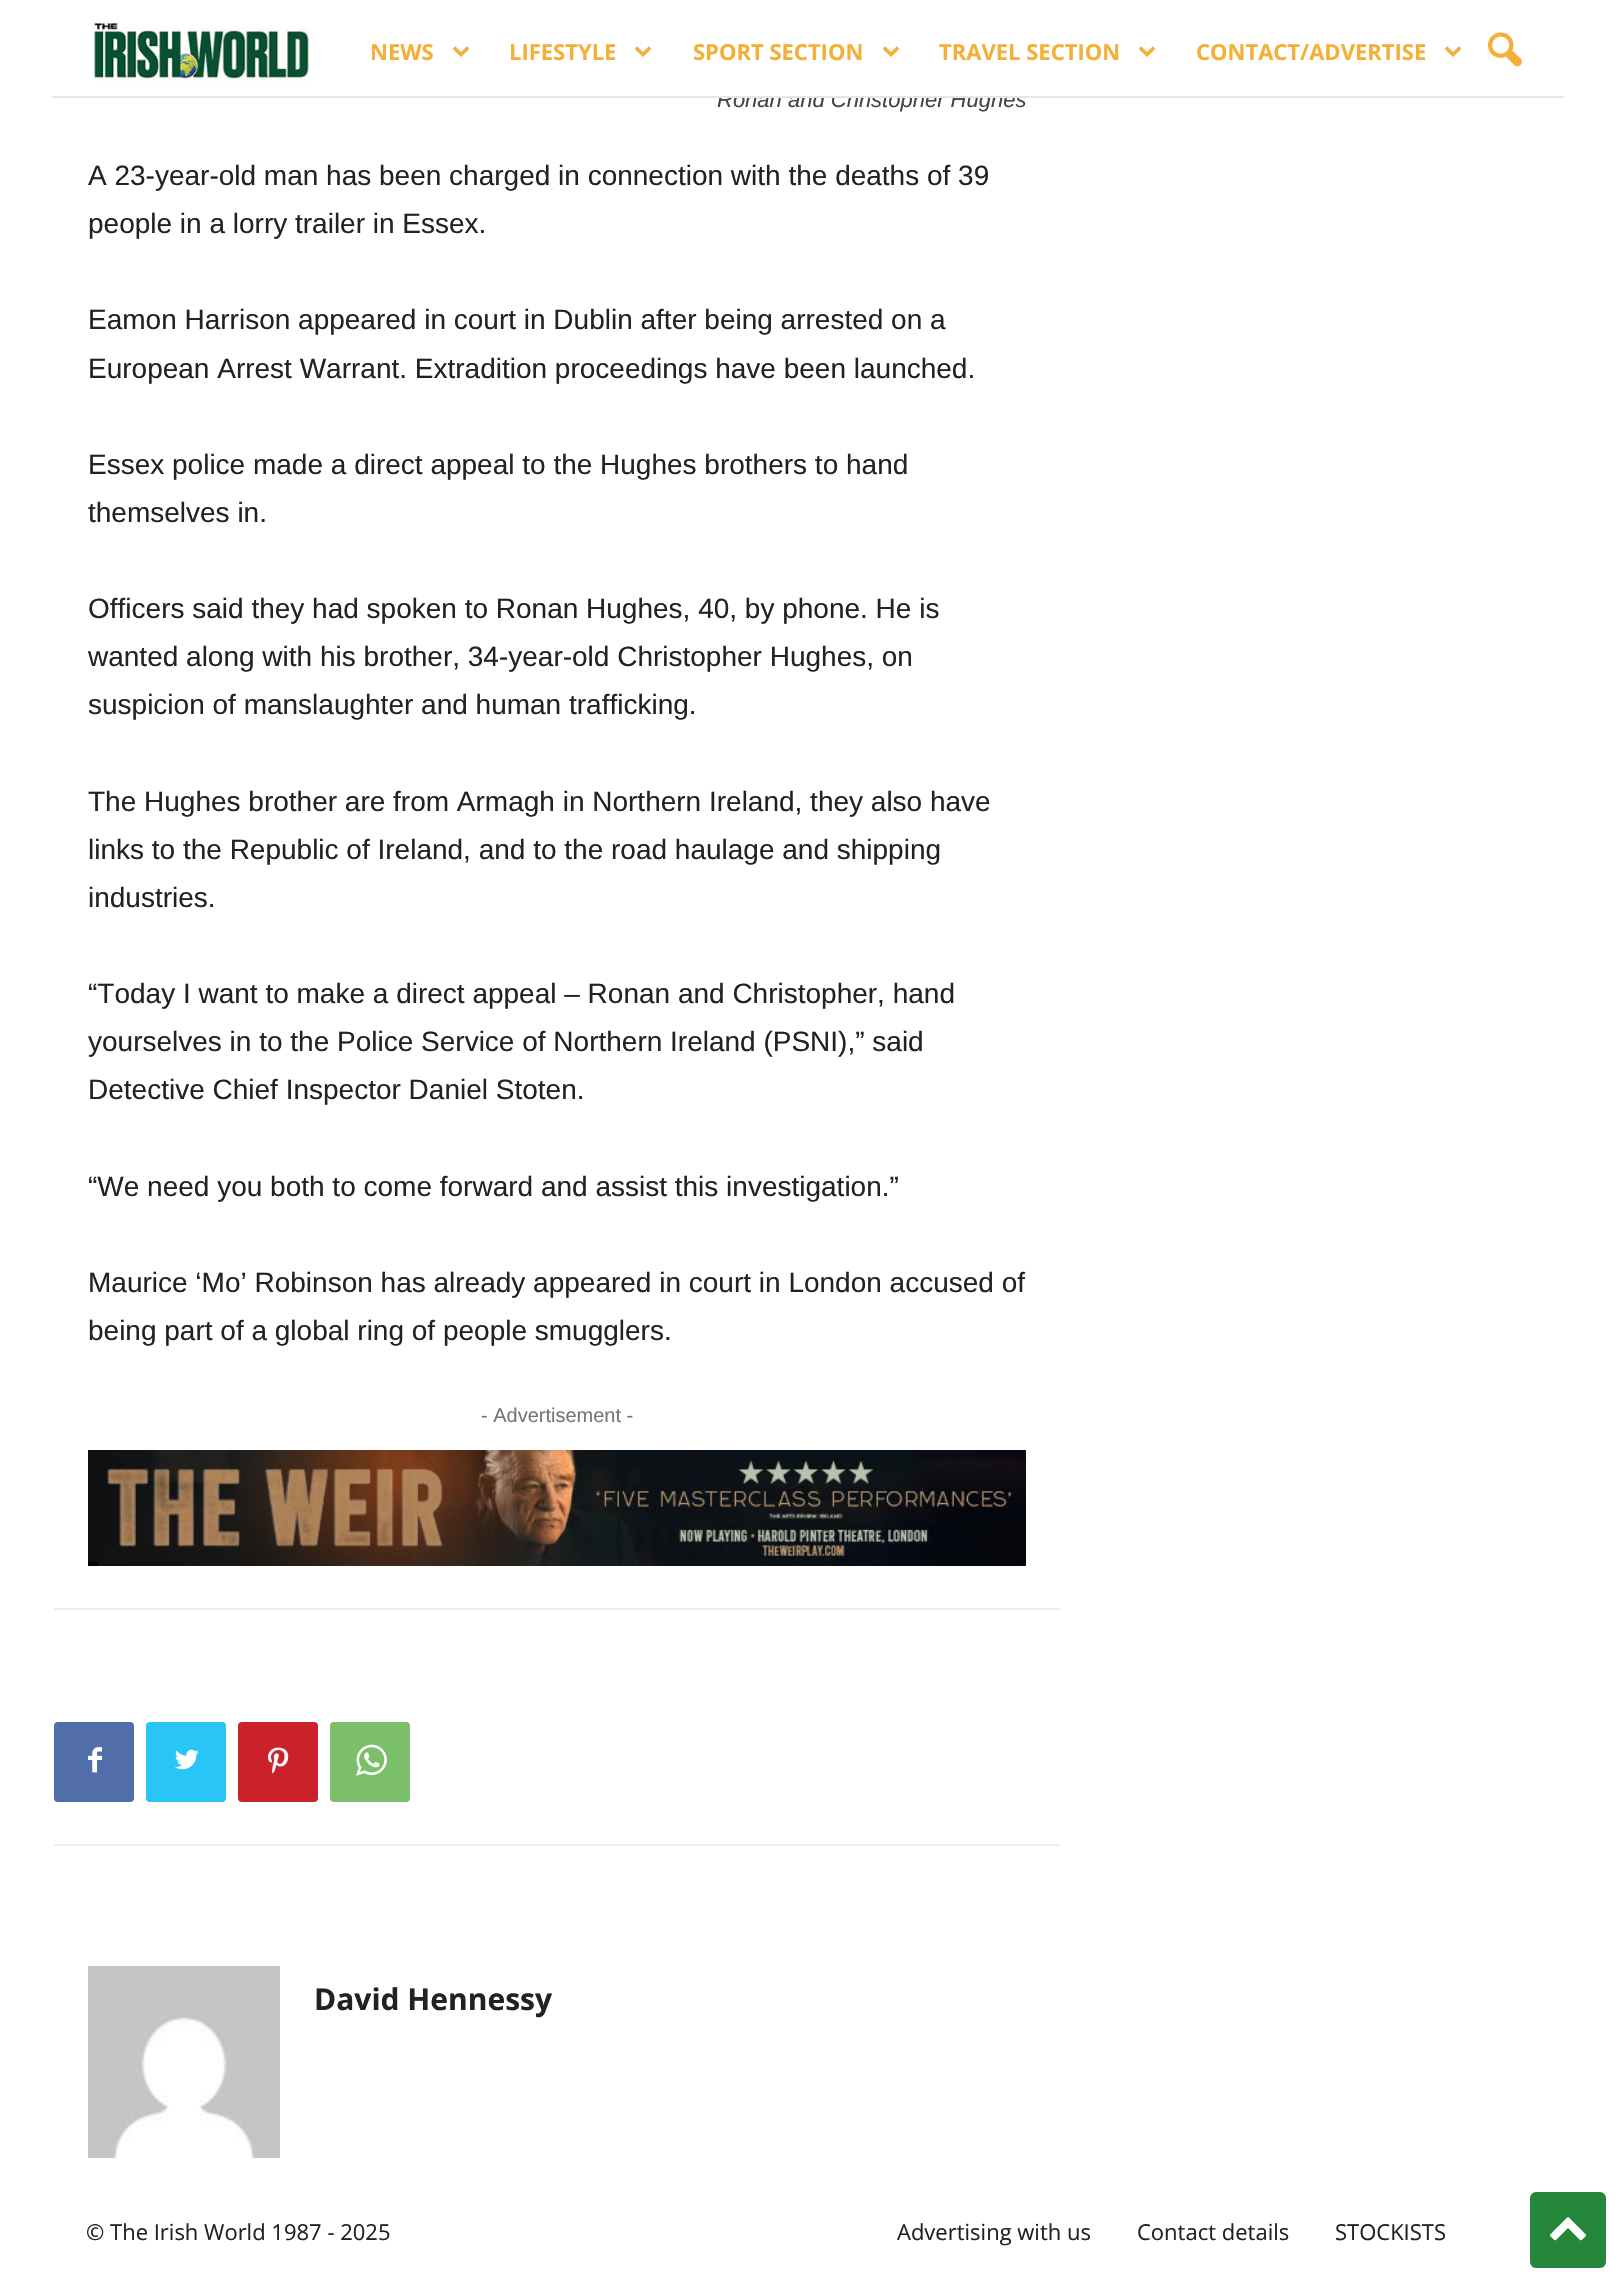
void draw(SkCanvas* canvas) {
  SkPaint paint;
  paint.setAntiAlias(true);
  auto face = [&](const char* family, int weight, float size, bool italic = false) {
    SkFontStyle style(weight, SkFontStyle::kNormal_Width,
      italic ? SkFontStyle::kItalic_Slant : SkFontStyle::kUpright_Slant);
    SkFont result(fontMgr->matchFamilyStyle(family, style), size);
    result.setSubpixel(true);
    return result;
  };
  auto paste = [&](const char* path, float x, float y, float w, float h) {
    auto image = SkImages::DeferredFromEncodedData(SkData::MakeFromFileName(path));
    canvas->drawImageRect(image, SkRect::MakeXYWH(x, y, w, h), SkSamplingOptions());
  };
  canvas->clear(0xffffffff);
  paste("img/1.png", 93, 21, 216, 61);
  paste("img/2.png", 452, 46, 18, 11);
  paste("img/2.png", 634, 46, 18, 11);
  paste("img/2.png", 882, 46, 18, 11);
  paste("img/2.png", 1138, 46, 18, 11);
  paste("img/2.png", 1444, 46, 18, 11);
  paste("img/3.png", 1488, 32, 34, 35);
  paste("img/4.png", 88, 1450, 938, 116);
  paint.setColor(0xffededed);
  canvas->drawRect(SkRect::MakeXYWH(54, 1608, 1006, 2), paint);
  canvas->drawRect(SkRect::MakeXYWH(54, 1844, 1006, 2), paint);
  paint.setColor(0xff516eab);
  canvas->drawRoundRect(SkRect::MakeXYWH(54, 1722, 80, 80), 4, 4, paint);
  paste("img/5.png", 88, 1747, 14, 26);
  paint.setColor(0xff29c5f6);
  canvas->drawRoundRect(SkRect::MakeXYWH(146, 1722, 80, 80), 4, 4, paint);
  paste("img/6.png", 175, 1749, 24, 21);
  paint.setColor(0xffca212a);
  canvas->drawRoundRect(SkRect::MakeXYWH(238, 1722, 80, 80), 4, 4, paint);
  paste("img/7.png", 268, 1747, 21, 27);
  paint.setColor(0xff7bbf6a);
  canvas->drawRoundRect(SkRect::MakeXYWH(330, 1722, 80, 80), 4, 4, paint);
  paste("img/8.png", 356, 1744, 31, 32);
  paste("img/9.png", 88, 1966, 192, 192);
  paint.setColor(0xff248739);
  canvas->drawRoundRect(SkRect::MakeXYWH(1530, 2192, 76, 76), 6, 6, paint);
  paste("img/10.png", 1550, 2217, 36, 24);
  auto f0 = face("Open Sans", 700, 22);
  paint.setColor(0xfff4af38);
  {
    const struct { const char* s; float x, y; } items[] = {
      {"NEWS", 370, 60},
      {"LIFESTYLE", 509, 60},
      {"SPORT SECTION", 693, 60},
      {"TRAVEL SECTION", 939, 60},
      {"CONTACT/ADVERTISE", 1196, 60},
    };
    for (auto [s, x, y] : items) {
      canvas->drawString(s, x, y, f0, paint);
    }
  }
  auto f1 = face("Liberation Sans", 400, 22, true);
  paint.setColor(0xff444444);
  canvas->drawString("Ronan and Christopher Hughes", 717, 107, f1, paint);
  paint.setColor(0xffe6e6e6);
  canvas->drawRect(SkRect::MakeXYWH(52, 96, 1512, 2), paint);
  paint.setColor(0xffffffff);
  canvas->drawRect(SkRect::MakeXYWH(719, 91, 306, 5), paint);
  auto f2 = face("Liberation Sans", 400, 28);
  paint.setColor(0xff222222);
  {
    const struct { const char* s; float x, y; } items[] = {
      {"A 23-year-old man has been charged in connection with the deaths of 39", 88, 185},
      {"people in a lorry trailer in Essex.", 88, 233},
      {"Eamon Harrison appeared in court in Dublin after being arrested on a", 88, 329},
      {"European Arrest Warrant. Extradition proceedings have been launched.", 88, 378},
      {"Essex police made a direct appeal to the Hughes brothers to hand", 88, 474},
      {"themselves in.", 88, 522},
      {"Officers said they had spoken to Ronan Hughes, 40, by phone. He is", 88, 618},
      {"wanted along with his brother, 34-year-old Christopher Hughes, on", 88, 666},
      {"suspicion of manslaughter and human trafficking.", 88, 714},
      {"The Hughes brother are from Armagh in Northern Ireland, they also have", 88, 811},
      {"links to the Republic of Ireland, and to the road haulage and shipping", 88, 859},
      {"industries.", 88, 907},
      {"“Today I want to make a direct appeal – Ronan and Christopher, hand", 88, 1003},
      {"yourselves in to the Police Service of Northern Ireland (PSNI),” said", 88, 1051},
      {"Detective Chief Inspector Daniel Stoten.", 88, 1099},
      {"“We need you both to come forward and assist this investigation.”", 88, 1196},
      {"Maurice ‘Mo’ Robinson has already appeared in court in London accused of", 88, 1292},
      {"being part of a global ring of people smugglers.", 88, 1340},
    };
    for (auto [s, x, y] : items) {
      canvas->drawString(s, x, y, f2, paint);
    }
  }
  auto f3 = face("Liberation Sans", 400, 20);
  paint.setColor(0xff767676);
  canvas->drawString("- Advertisement -", 481, 1422, f3, paint);
  auto f4 = face("Open Sans", 700, 30);
  paint.setColor(0xff222222);
  canvas->drawString("David Hennessy", 314, 2010, f4, paint);
  auto f5 = face("Open Sans", 400, 22);
  {
    const struct { const char* s; float x, y; } items[] = {
      {"© The Irish World 1987 - 2025", 86, 2240},
      {"Advertising with us", 897, 2240},
      {"Contact details", 1137, 2240},
      {"STOCKISTS", 1335, 2240},
    };
    for (auto [s, x, y] : items) {
      canvas->drawString(s, x, y, f5, paint);
    }
  }
}
